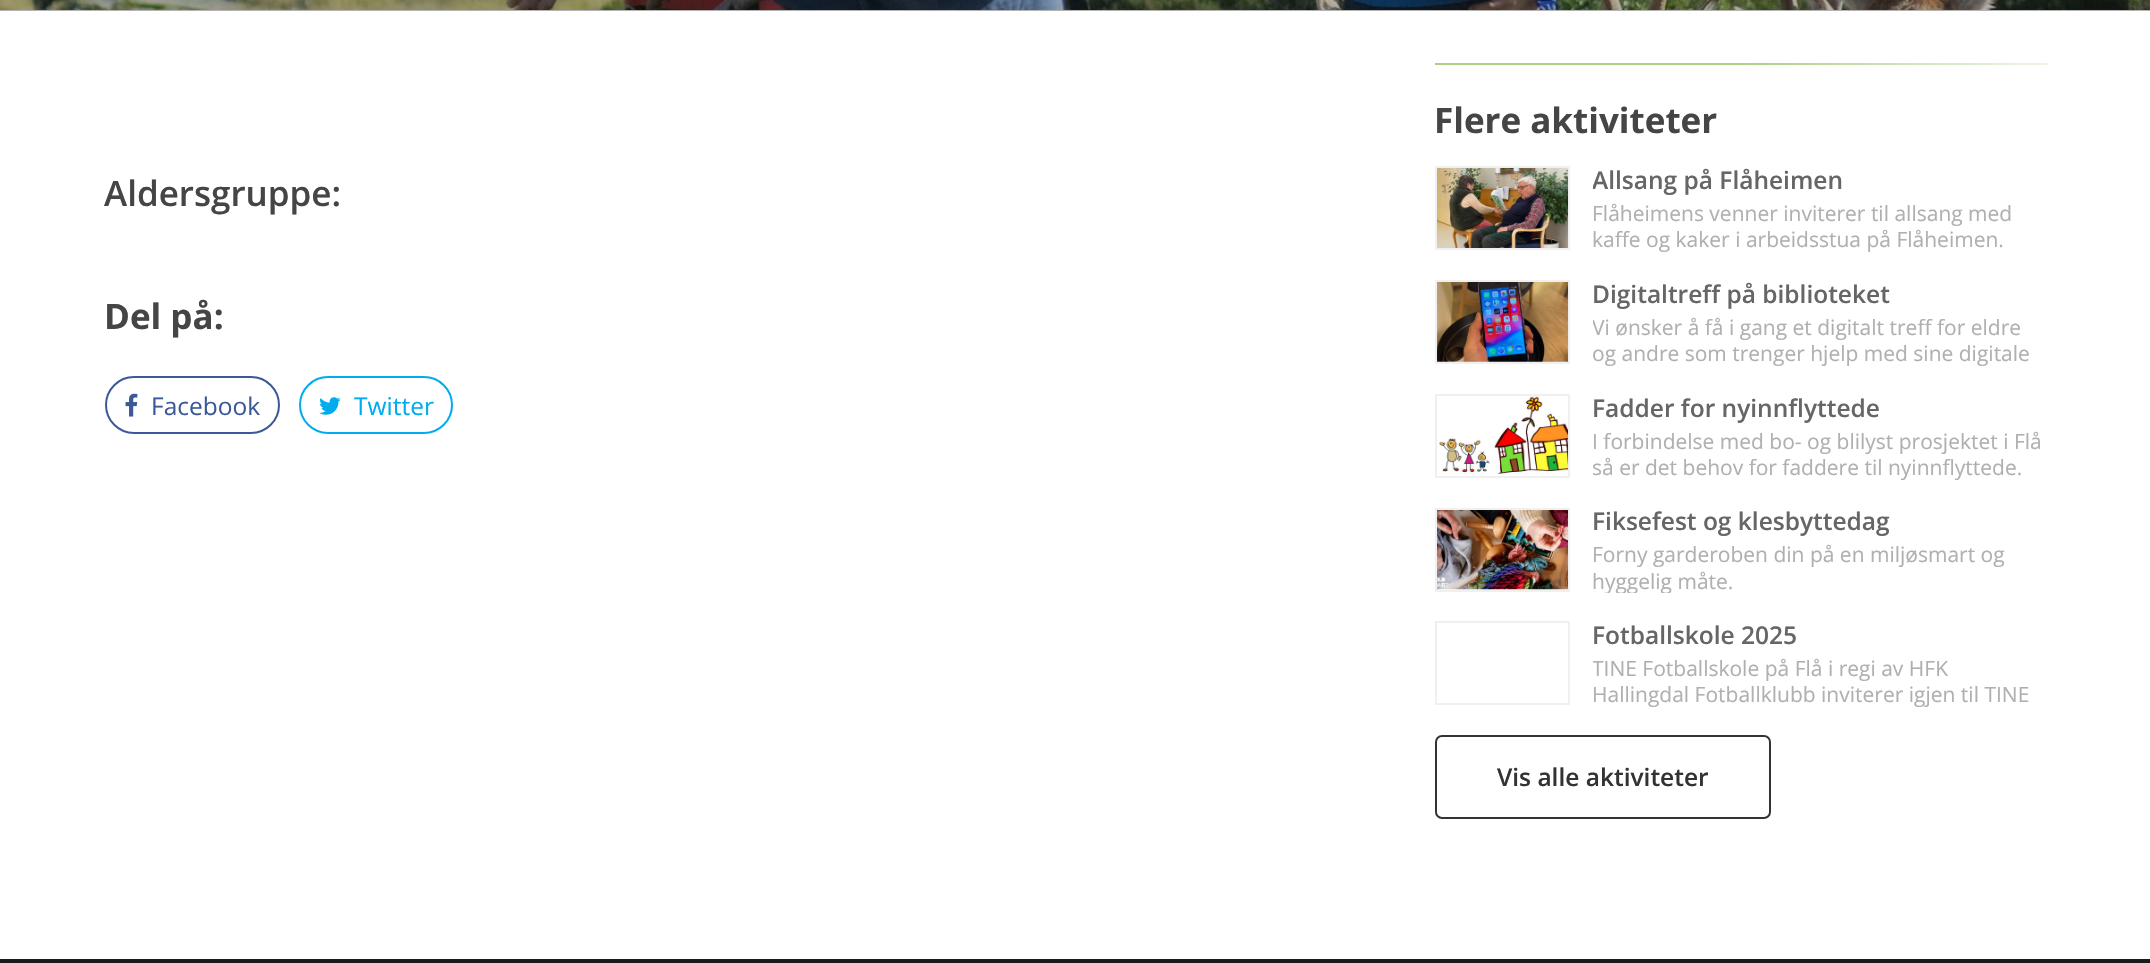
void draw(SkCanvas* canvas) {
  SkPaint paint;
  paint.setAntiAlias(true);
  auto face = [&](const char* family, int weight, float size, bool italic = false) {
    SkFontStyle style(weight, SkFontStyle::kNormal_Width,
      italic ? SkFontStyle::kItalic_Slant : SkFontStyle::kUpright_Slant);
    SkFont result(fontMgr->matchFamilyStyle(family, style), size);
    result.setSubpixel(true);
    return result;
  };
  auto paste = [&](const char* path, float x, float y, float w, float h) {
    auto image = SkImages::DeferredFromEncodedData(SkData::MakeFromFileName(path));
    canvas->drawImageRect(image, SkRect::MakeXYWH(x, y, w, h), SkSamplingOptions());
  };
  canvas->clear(0xffffffff);
  paint.setColor(0xffb3b3b3);
  canvas->drawRect(SkRect::MakeXYWH(0, 10, 2150, 1), paint);
  paste("img/1.png", 0, 0, 2150, 10);
  paint.setStroke(true);
  paint.setStrokeWidth(2);
  paint.setColor(0xff3b5998);
  canvas->drawRoundRect(SkRect::MakeXYWH(106, 377, 173, 56), 28, 28, paint);
  paste("img/2.png", 125, 393, 13, 24);
  paint.setColor(0xff00acee);
  canvas->drawRoundRect(SkRect::MakeXYWH(300, 377, 152, 56), 28, 28, paint);
  paste("img/3.png", 319, 397, 22, 18);
  paint.setStroke(false);
  {
    const SkColor colors[] = {0xffaccf84, 0xffaccf84, 0xffeef5e6};
    const float stops[] = {0, 0.5f, 1};
    const SkPoint ends[] = {{1435, 64}, {2048, 64}};
    paint.setShader(SkGradientShader::MakeLinear(ends, colors, stops, 3, SkTileMode::kClamp));
    paint.setAlpha(255);
  }
  canvas->drawRect(SkRect::MakeXYWH(1435, 63, 613, 2), paint);
  paste("img/4.png", 1437, 168, 131, 80);
  paint.setStroke(true);
  paint.setShader(nullptr);
  paint.setColor(0xfff0f0f0);
  canvas->drawRect(SkRect::MakeXYWH(1436, 167, 133, 82), paint);
  paste("img/5.png", 1437, 282, 131, 80);
  canvas->drawRect(SkRect::MakeXYWH(1436, 281, 133, 82), paint);
  paste("img/6.png", 1439, 396, 129, 78);
  canvas->drawRect(SkRect::MakeXYWH(1436, 395, 133, 82), paint);
  paste("img/7.png", 1437, 510, 131, 80);
  canvas->drawRect(SkRect::MakeXYWH(1436, 509, 133, 82), paint);
  canvas->drawRect(SkRect::MakeXYWH(1436, 622, 133, 82), paint);
  paint.setColor(0xff333333);
  canvas->drawRoundRect(SkRect::MakeXYWH(1436, 736, 334, 82), 6, 6, paint);
  paint.setStroke(false);
  paint.setColor(0xff1a1a1a);
  canvas->drawRect(SkRect::MakeXYWH(0, 959, 2150, 4), paint);
  auto f0 = face("Open Sans", 600, 35);
  paint.setColor(0xff454545);
  canvas->drawString("Aldersgruppe:", 104, 206, f0, paint);
  auto f1 = face("Open Sans", 700, 35);
  canvas->drawString("Del på:", 104, 329, f1, paint);
  auto f2 = face("Open Sans", 400, 24.5f);
  paint.setColor(0xff3b5998);
  canvas->drawString("Facebook", 151, 415, f2, paint);
  paint.setColor(0xff00acee);
  canvas->drawString("Twitter", 354, 415, f2, paint);
  paint.setColor(0xff454545);
  canvas->drawString("Flere aktiviteter", 1434, 133, f1, paint);
  canvas->save();
  canvas->clipRect(SkRect::MakeXYWH(1593, 166, 455, 34));
  auto f3 = face("Open Sans", 600, 24.5f);
  paint.setColor(0xff666666);
  canvas->drawString("Allsang på Flåheimen", 1592, 189, f3, paint);
  canvas->restore();
  auto f4 = face("Open Sans", 400, 21);
  paint.setColor(0xffb0b0b0);
  canvas->drawString("Flåheimens venner inviterer til allsang med", 1592, 221, f4, paint);
  canvas->drawString("kaffe og kaker i arbeidsstua på Flåheimen.", 1592, 247, f4, paint);
  paint.setColor(0xff666666);
  canvas->drawString("Digitaltreff på biblioteket", 1592, 303, f3, paint);
  canvas->save();
  canvas->clipRect(SkRect::MakeXYWH(1593, 313, 455, 55));
  paint.setColor(0xffb0b0b0);
  canvas->drawString("Vi ønsker å få i gang et digitalt treff for eldre", 1592, 335, f4, paint);
  canvas->drawString("og andre som trenger hjelp med sine digitale", 1592, 361, f4, paint);
  canvas->restore();
  paint.setColor(0xff666666);
  canvas->drawString("Fadder for nyinnflyttede", 1592, 417, f3, paint);
  paint.setColor(0xffb0b0b0);
  canvas->drawString("I forbindelse med bo- og blilyst prosjektet i Flå", 1592, 449, f4, paint);
  canvas->save();
  canvas->clipRect(SkRect::MakeXYWH(1593, 427, 455, 53));
  canvas->drawString("så er det behov for faddere til nyinnflyttede.", 1592, 475, f4, paint);
  canvas->restore();
  paint.setColor(0xff666666);
  canvas->drawString("Fiksefest og klesbyttedag", 1592, 530, f3, paint);
  paint.setColor(0xffb0b0b0);
  canvas->drawString("Forny garderoben din på en miljøsmart og", 1592, 562, f4, paint);
  canvas->save();
  canvas->clipRect(SkRect::MakeXYWH(1593, 541, 455, 52));
  canvas->drawString("hyggelig måte.", 1592, 589, f4, paint);
  canvas->restore();
  paint.setColor(0xff666666);
  canvas->drawString("Fotballskole 2025", 1592, 644, f3, paint);
  canvas->save();
  canvas->clipRect(SkRect::MakeXYWH(1593, 655, 455, 54));
  paint.setColor(0xffb0b0b0);
  canvas->drawString("TINE Fotballskole på Flå i regi av HFK", 1592, 676, f4, paint);
  canvas->restore();
  canvas->drawString("Hallingdal Fotballklubb inviterer igjen til TINE", 1592, 702, f4, paint);
  paint.setColor(0xff333333);
  canvas->drawString("Vis alle aktiviteter", 1497, 786, f3, paint);
}
